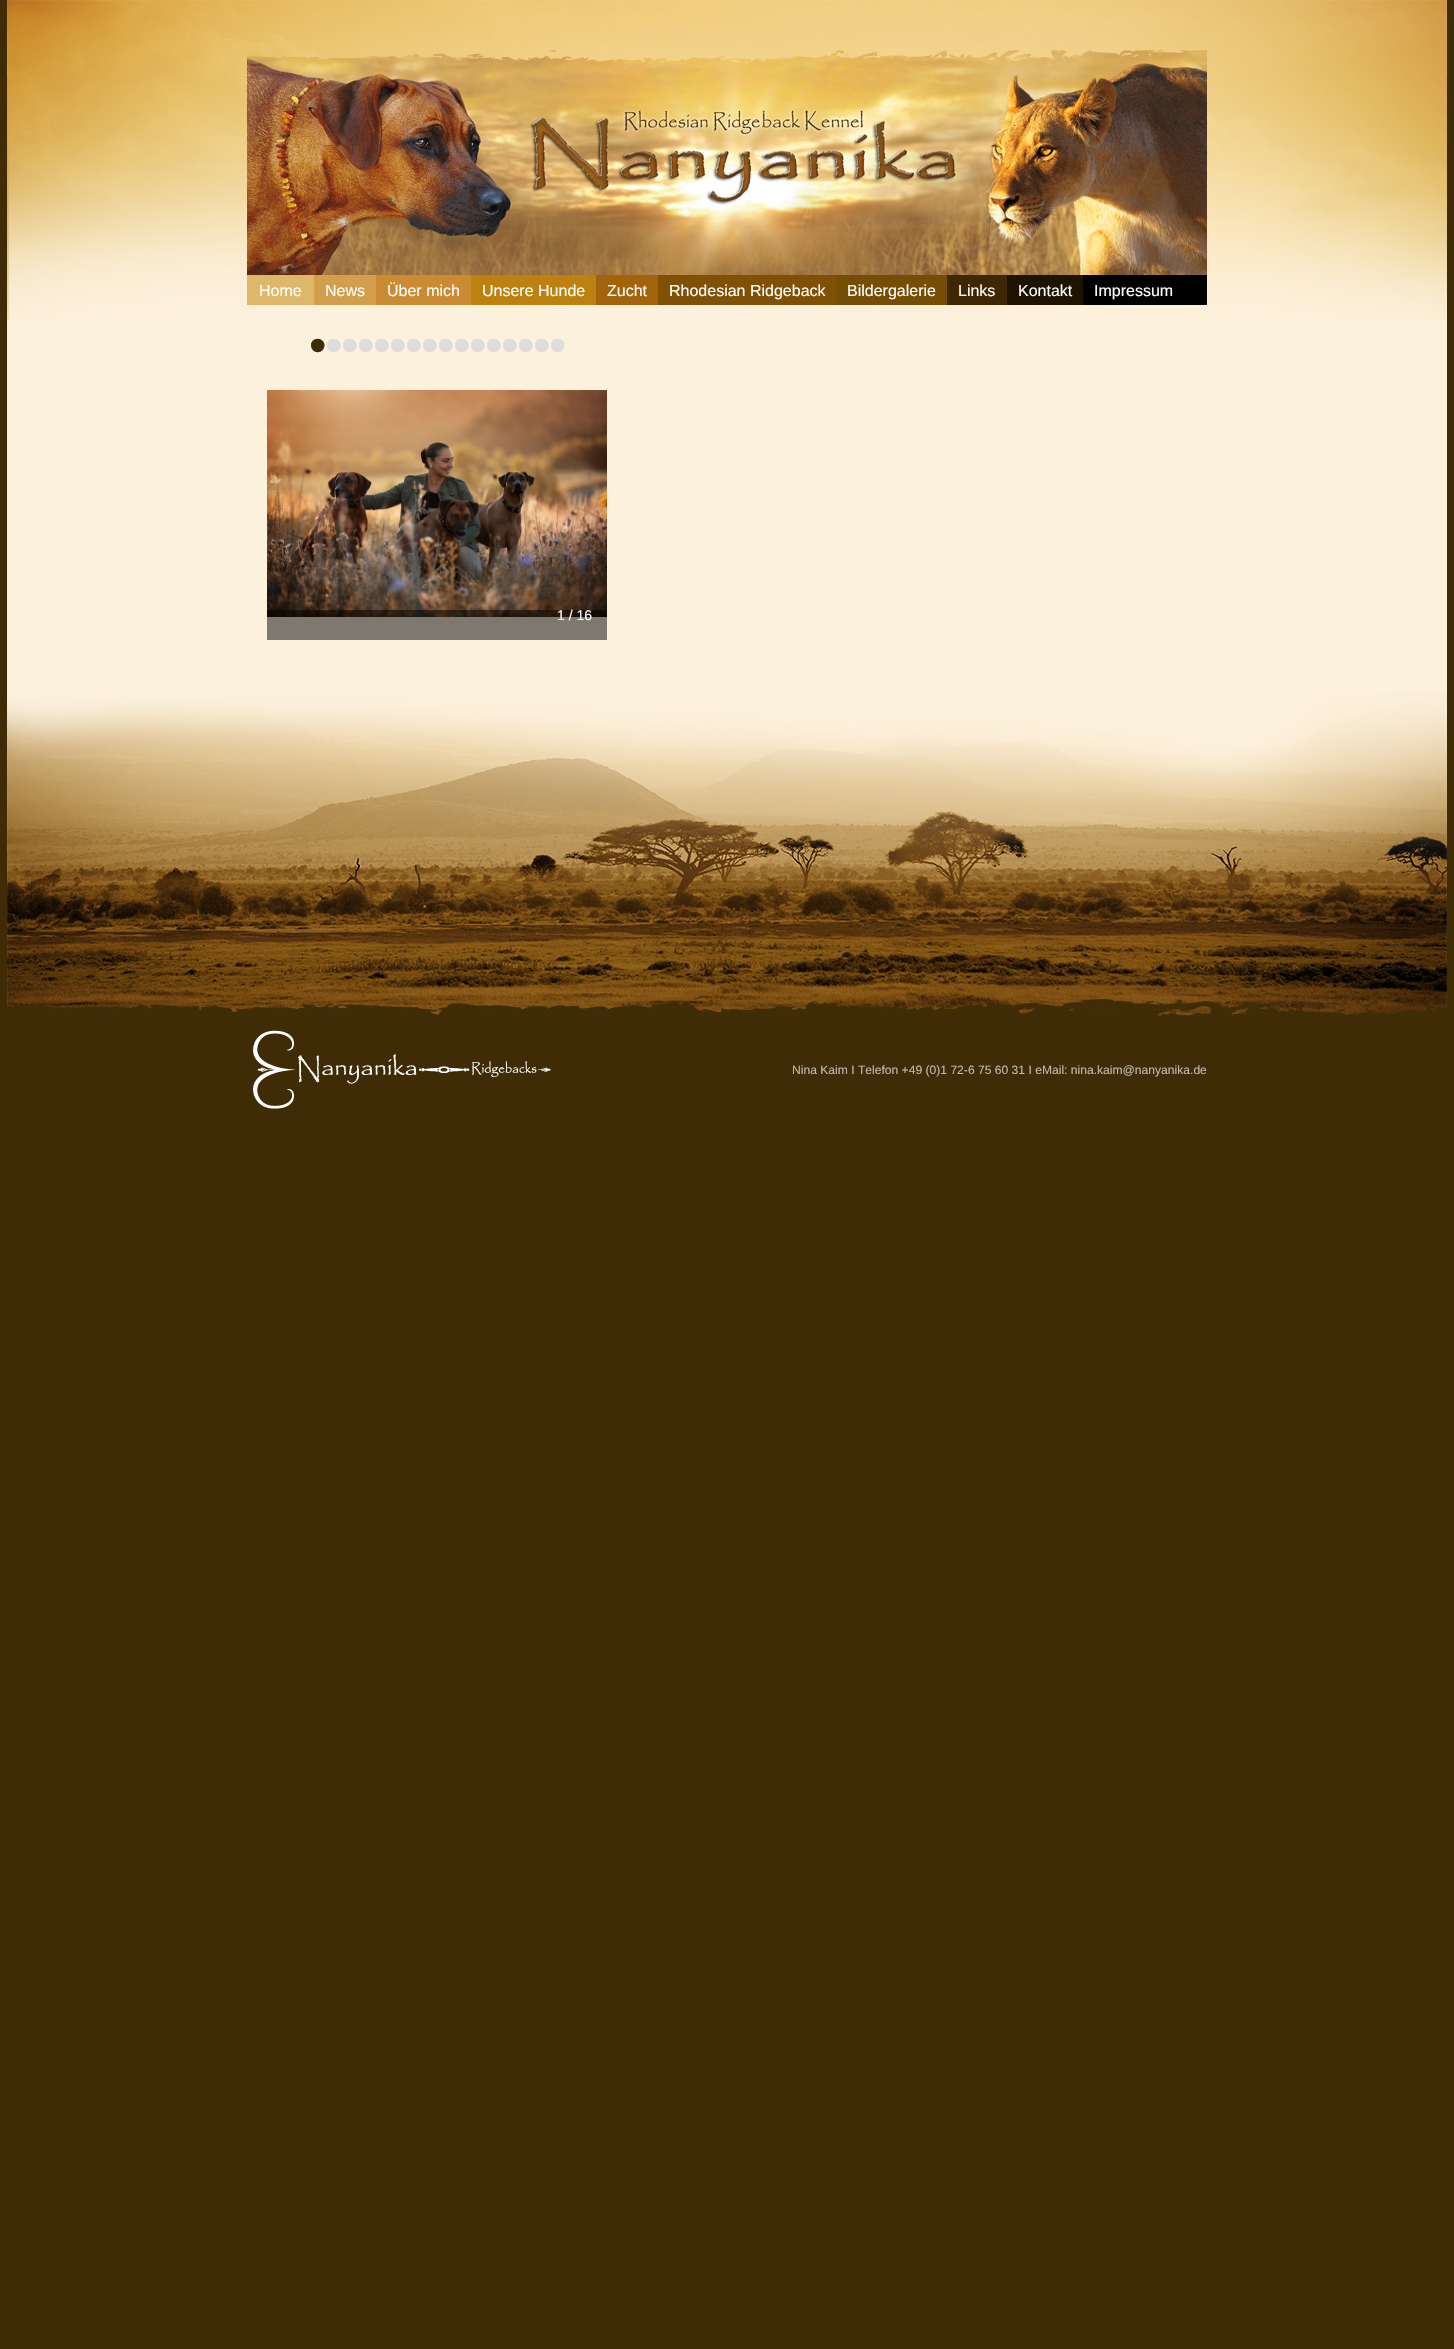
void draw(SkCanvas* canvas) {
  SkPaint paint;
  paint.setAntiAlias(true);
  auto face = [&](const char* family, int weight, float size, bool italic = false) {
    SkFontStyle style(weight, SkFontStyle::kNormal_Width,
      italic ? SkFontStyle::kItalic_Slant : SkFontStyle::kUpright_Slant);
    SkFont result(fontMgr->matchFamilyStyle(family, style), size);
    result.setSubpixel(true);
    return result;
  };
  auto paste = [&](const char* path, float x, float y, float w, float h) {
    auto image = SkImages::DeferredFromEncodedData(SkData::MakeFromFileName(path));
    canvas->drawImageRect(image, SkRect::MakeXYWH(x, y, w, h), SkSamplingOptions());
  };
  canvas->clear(0xff3f2c07);
  paint.setColor(0xfffcf1dd);
  canvas->drawRect(SkRect::MakeXYWH(7, 320, 1440, 370), paint);
  paste("img/1.png", 7, 0, 1440, 320);
  paste("img/2.png", 247, 50, 960, 225);
  {
    const struct { float x, y, w, h; SkColor color; } items[] = {
      {1083, 275, 124, 30, 0xff000000},
      {247, 275, 67, 30, 0xffdfb76b},
      {314, 275, 62, 30, 0xffd39f4c},
      {376, 275, 95, 30, 0xffca8b33},
      {471, 275, 125, 30, 0xffbd8112},
      {596, 275, 62, 30, 0xffa3630a},
      {658, 275, 178, 30, 0xff805005},
      {836, 275, 111, 30, 0xff764d04},
      {947, 275, 60, 30, 0xff3e2702},
      {1007, 275, 76, 30, 0xff1e1300},
    };
    for (auto [x, y, w, h, color] : items) {
      paint.setColor(color);
      canvas->drawRect(SkRect::MakeXYWH(x, y, w, h), paint);
    }
  }
  paste("img/3.png", 267, 390, 340, 227);
  paint.setColor(0x80000000);
  canvas->drawRect(SkRect::MakeXYWH(267, 610, 340, 30), paint);
  paste("img/4.png", 7, 690, 1440, 328);
  paste("img/5.png", 253, 1030, 298, 79);
  auto f0 = face("Liberation Sans", 400, 16);
  paint.setColor(0xffffffff);
  {
    const struct { const char* s; float x, y; } items[] = {
      {"Home", 259, 296},
      {"News", 325, 296},
      {"Über mich", 387, 296},
      {"Unsere Hunde", 482, 296},
      {"Zucht", 607, 296},
      {"Rhodesian Ridgeback", 669, 296},
      {"Bildergalerie", 847, 296},
      {"Links", 958, 296},
      {"Kontakt", 1018, 296},
      {"Impressum", 1094, 296},
    };
    for (auto [s, x, y] : items) {
      canvas->drawString(s, x, y, f0, paint);
    }
  }
  auto f1 = face("Liberation Sans", 400, 50);
  paint.setColor(0xff3f2c07);
  canvas->drawString("•", 309, 362, f1, paint);
  paint.setColor(0xffdddddd);
  {
    const struct { const char* s; float x, y; } items[] = {
      {"•", 325, 362},
      {"•", 341, 362},
      {"•", 357, 362},
      {"•", 373, 362},
      {"•", 389, 362},
      {"•", 405, 362},
      {"•", 421, 362},
      {"•", 437, 362},
      {"•", 453, 362},
      {"•", 469, 362},
      {"•", 485, 362},
      {"•", 501, 362},
      {"•", 517, 362},
      {"•", 533, 362},
      {"•", 549, 362},
    };
    for (auto [s, x, y] : items) {
      canvas->drawString(s, x, y, f1, paint);
    }
  }
  auto f2 = face("Liberation Sans", 400, 14);
  paint.setColor(0xffffffff);
  canvas->drawString("1 / 16", 557, 620, f2, paint);
  auto f3 = face("Liberation Sans", 400, 12.1f);
  paint.setColor(0xffc1bbaf);
  canvas->drawString("Nina Kaim Ι Telefon +49 (0)1 72-6 75 60 31 Ι eMail: nina.kaim@nanyanika.de", 792, 1074, f3, paint);
}
